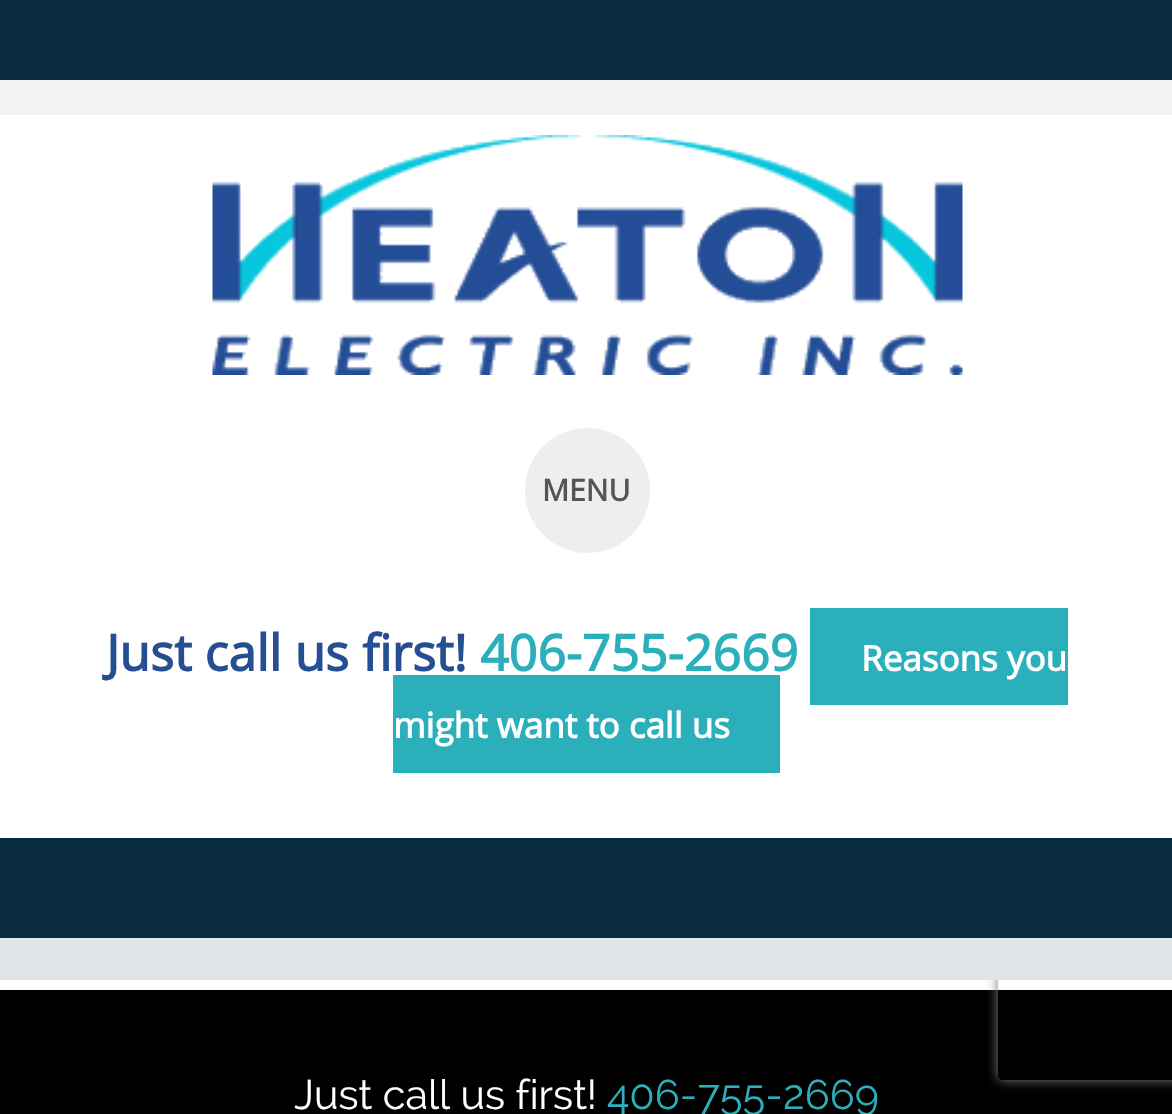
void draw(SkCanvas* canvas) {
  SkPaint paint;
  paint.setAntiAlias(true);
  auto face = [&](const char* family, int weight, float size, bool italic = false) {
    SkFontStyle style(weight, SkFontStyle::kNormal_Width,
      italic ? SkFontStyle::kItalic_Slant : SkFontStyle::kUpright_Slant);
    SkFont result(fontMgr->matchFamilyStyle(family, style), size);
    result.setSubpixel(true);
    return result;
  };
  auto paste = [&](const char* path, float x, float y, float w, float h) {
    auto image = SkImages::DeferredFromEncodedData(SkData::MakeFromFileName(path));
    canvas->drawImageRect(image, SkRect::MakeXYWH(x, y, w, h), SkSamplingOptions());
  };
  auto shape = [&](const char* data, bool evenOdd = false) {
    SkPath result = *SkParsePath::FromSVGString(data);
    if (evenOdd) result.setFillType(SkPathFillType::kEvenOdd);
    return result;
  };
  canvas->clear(0xffffffff);
  paint.setColor(0xff092b41);
  canvas->drawRect(SkRect::MakeXYWH(0, 0, 1172, 80), paint);
  paint.setColor(0xfff3f3f3);
  canvas->drawRect(SkRect::MakeXYWH(0, 80, 1172, 35), paint);
  paste("img/1.png", 212, 135, 751, 240);
  paint.setColor(0xffeeeeee);
  canvas->drawCircle(587.5f, 490.5f, 62.5f, paint);
  paint.setColor(0xff2bafbb);
  canvas->drawRect(SkRect::MakeXYWH(810, 608, 258, 97), paint);
  paint.setColor(0xff000000);
  canvas->drawRect(SkRect::MakeXYWH(0, 990, 1172, 124), paint);
  canvas->save();
  canvas->clipPath(shape("M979 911H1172V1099H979ZM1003 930H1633C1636 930 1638 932 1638 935V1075C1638 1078 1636 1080 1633 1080H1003C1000 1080 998 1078 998 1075V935C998 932 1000 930 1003 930Z", true), true);
  paint.setColor(0xff808080);
  paint.setMaskFilter(SkMaskFilter::MakeBlur(kNormal_SkBlurStyle, 6));
  canvas->drawRoundRect(SkRect::MakeXYWH(998, 930, 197, 150), 5, 5, paint);
  paint.setMaskFilter(nullptr);
  canvas->restore();
  paint.setColor(0xff092b41);
  canvas->drawRect(SkRect::MakeXYWH(0, 838, 1172, 100), paint);
  paint.setColor(0xffe2e5e7);
  canvas->drawRect(SkRect::MakeXYWH(0, 938, 1172, 42), paint);
  auto f0 = face("Open Sans", 700, 30);
  paint.setColor(0xff555555);
  canvas->drawString("MENU", 542, 501, f0, paint);
  auto f1 = face("Open Sans", 700, 50);
  paint.setColor(0xff254e93);
  canvas->drawString("Just call us first!", 106, 671, f1, paint);
  paint.setColor(0xff2bafbb);
  canvas->drawString("406-755-2669", 480, 671, f1, paint);
  auto f2 = face("Open Sans", 700, 35);
  paint.setColor(0xffffffff);
  canvas->drawString("Reasons you", 861, 671, f2, paint);
  paint.setColor(0xff2bafbb);
  canvas->drawRect(SkRect::MakeXYWH(393, 675, 387, 98), paint);
  paint.setColor(0xffffffff);
  canvas->drawString("might want to call us", 393, 738, f2, paint);
  auto f3 = face("Raleway", 400, 41.25f);
  canvas->drawString("Just call us first!", 294, 1109, f3, paint);
  paint.setColor(0xff2bafbb);
  canvas->drawString("406-755-2669", 607, 1109, f3, paint);
}
